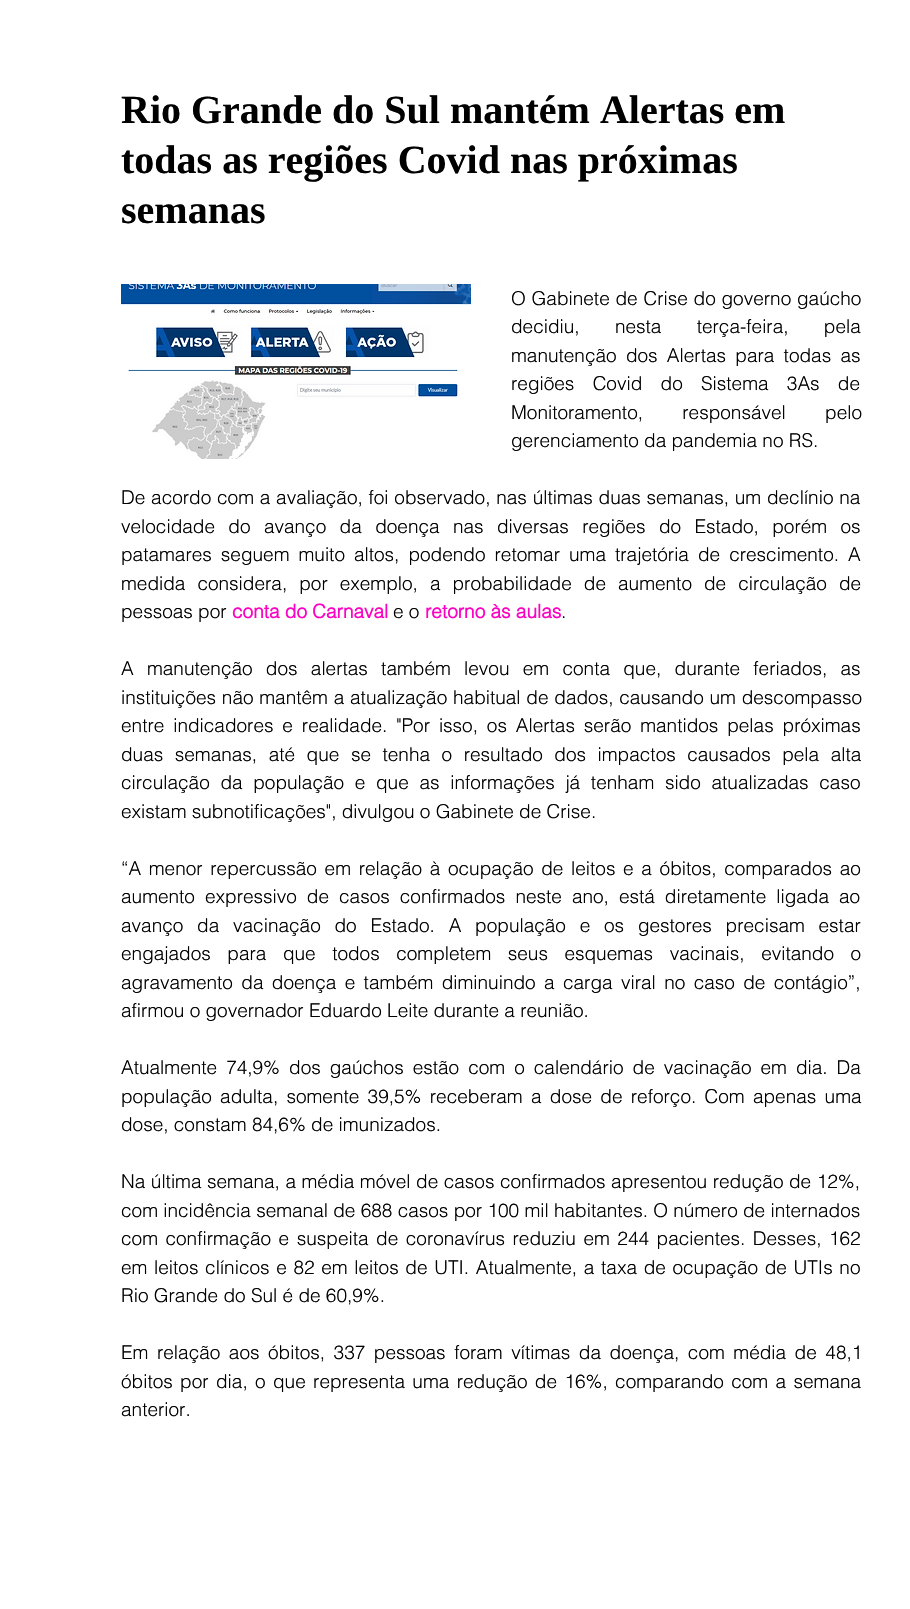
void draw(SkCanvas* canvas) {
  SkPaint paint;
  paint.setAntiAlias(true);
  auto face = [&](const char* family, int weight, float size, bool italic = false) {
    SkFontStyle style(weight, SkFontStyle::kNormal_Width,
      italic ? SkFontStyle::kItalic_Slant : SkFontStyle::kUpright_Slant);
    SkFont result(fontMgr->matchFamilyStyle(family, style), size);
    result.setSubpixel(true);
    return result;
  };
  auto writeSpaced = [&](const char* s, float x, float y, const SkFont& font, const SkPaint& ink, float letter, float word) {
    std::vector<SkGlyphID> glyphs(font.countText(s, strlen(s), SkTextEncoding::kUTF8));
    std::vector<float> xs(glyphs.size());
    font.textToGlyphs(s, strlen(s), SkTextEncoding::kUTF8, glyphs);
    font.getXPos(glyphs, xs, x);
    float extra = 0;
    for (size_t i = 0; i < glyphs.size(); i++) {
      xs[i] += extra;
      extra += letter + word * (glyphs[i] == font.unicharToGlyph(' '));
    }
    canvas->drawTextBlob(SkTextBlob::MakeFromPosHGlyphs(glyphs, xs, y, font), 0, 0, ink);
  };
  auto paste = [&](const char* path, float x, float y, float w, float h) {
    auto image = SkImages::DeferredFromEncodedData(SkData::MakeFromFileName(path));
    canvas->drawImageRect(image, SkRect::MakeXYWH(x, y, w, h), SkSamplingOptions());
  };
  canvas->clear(0xffffffff);
  paste("img/1.png", 121, 284, 350, 175);
  auto f0 = face("Liberation Serif", 700, 40);
  paint.setColor(0xff000000);
  {
    const struct { const char* s; float x, y; } items[] = {
      {"Rio Grande do Sul mantém Alertas em", 121, 123},
      {"todas as regiões Covid nas próximas", 121, 173},
      {"semanas", 121, 223},
    };
    for (auto [s, x, y] : items) {
      canvas->drawString(s, x, y, f0, paint);
    }
  }
  auto f1 = face("helvetica", 300, 19);
  writeSpaced("O Gabinete de Crise do governo gaúcho", 511, 305, f1, paint, 0, 0.5f);
  writeSpaced("decidiu, nesta terça-feira, pela", 511, 333, f1, paint, 0, 30);
  writeSpaced("manutenção dos Alertas para todas as", 511, 362, f1, paint, 0, 4);
  writeSpaced("regiões Covid do Sistema 3As de", 511, 390, f1, paint, 0, 13);
  writeSpaced("Monitoramento, responsável pelo", 511, 419, f1, paint, 0, 34);
  canvas->drawString("gerenciamento da pandemia no RS.", 511, 447, f1, paint);
  writeSpaced("De acordo com a avaliação, foi observado, nas últimas duas semanas, um declínio na", 121, 504, f1, paint, 0, 0.5f);
  writeSpaced("velocidade do avanço da doença nas diversas regiões do Estado, porém os", 121, 533, f1, paint, 0, 8.1f);
  writeSpaced("patamares seguem muito altos, podendo retomar uma trajetória de crescimento. A", 121, 561, f1, paint, 0, 3.75f);
  writeSpaced("medida considera, por exemplo, a probabilidade de aumento de circulação de", 121, 590, f1, paint, 0, 6.75f);
  canvas->drawString("pessoas por", 121, 618, f1, paint);
  auto f2 = face("helvetica", 700, 19);
  paint.setColor(0xfff904c3);
  canvas->drawString("conta do Carnaval", 232, 618, f2, paint);
  paint.setColor(0xff000000);
  canvas->drawString("e o", 393, 618, f1, paint);
  paint.setColor(0xfff904c3);
  canvas->drawString("retorno às aulas", 425, 618, f2, paint);
  paint.setColor(0xff000000);
  canvas->drawString(".", 561, 618, f1, paint);
  writeSpaced("A manutenção dos alertas também levou em conta que, durante feriados, as", 121, 675, f1, paint, 0, 8);
  writeSpaced("instituições não mantêm a atualização habitual de dados, causando um descompasso", 121, 704, f1, paint, 0, 0.5f);
  writeSpaced("entre indicadores e realidade. \"Por isso, os Alertas serão mantidos pelas próximas", 121, 732, f1, paint, 0, 3.6f);
  writeSpaced("duas semanas, até que se tenha o resultado dos impactos causados pela alta", 121, 761, f1, paint, 0, 6.25f);
  writeSpaced("circulação da população e que as informações já tenham sido atualizadas caso", 121, 789, f1, paint, 0, 5.4f);
  canvas->drawString("existam subnotificações\", divulgou o Gabinete de Crise.", 121, 818, f1, paint);
  writeSpaced("“A menor repercussão em relação à ocupação de leitos e a óbitos, comparados ao", 121, 875, f1, paint, 0, 2.4f);
  writeSpaced("aumento expressivo de casos confirmados neste ano, está diretamente ligada ao", 121, 903, f1, paint, 0, 4.75f);
  writeSpaced("avanço da vacinação do Estado. A população e os gestores precisam estar", 121, 932, f1, paint, 0, 8.5f);
  writeSpaced("engajados para que todos completem seus esquemas vacinais, evitando o", 121, 960, f1, paint, 0, 11.25f);
  writeSpaced("agravamento da doença e também diminuindo a carga viral no caso de contágio”,", 121, 989, f1, paint, 0, 3.1f);
  canvas->drawString("afirmou o governador Eduardo Leite durante a reunião.", 121, 1017, f1, paint);
  writeSpaced("Atualmente 74,9% dos gaúchos estão com o calendário de vacinação em dia. Da", 121, 1074, f1, paint, 0, 3.75f);
  writeSpaced("população adulta, somente 39,5% receberam a dose de reforço. Com apenas uma", 121, 1103, f1, paint, 0, 3);
  canvas->drawString("dose, constam 84,6% de imunizados.", 121, 1131, f1, paint);
  writeSpaced("Na última semana, a média móvel de casos confirmados apresentou redução de 12%,", 121, 1188, f1, paint, 0, 0.25f);
  canvas->drawString("com incidência semanal de 688 casos por 100 mil habitantes. O número de internados", 121, 1217, f1, paint);
  writeSpaced("com confirmação e suspeita de coronavírus reduziu em 244 pacientes. Desses, 162", 121, 1245, f1, paint, 0, 2.25f);
  writeSpaced("em leitos clínicos e 82 em leitos de UTI. Atualmente, a taxa de ocupação de UTIs no", 121, 1274, f1, paint, 0, 1.4f);
  canvas->drawString("Rio Grande do Sul é de 60,9%.", 121, 1302, f1, paint);
  writeSpaced("Em relação aos óbitos, 337 pessoas foram vítimas da doença, com média de 48,1", 121, 1359, f1, paint, 0, 3.25f);
  writeSpaced("óbitos por dia, o que representa uma redução de 16%, comparando com a semana", 121, 1388, f1, paint, 0, 2.1f);
  canvas->drawString("anterior.", 121, 1416, f1, paint);
}
